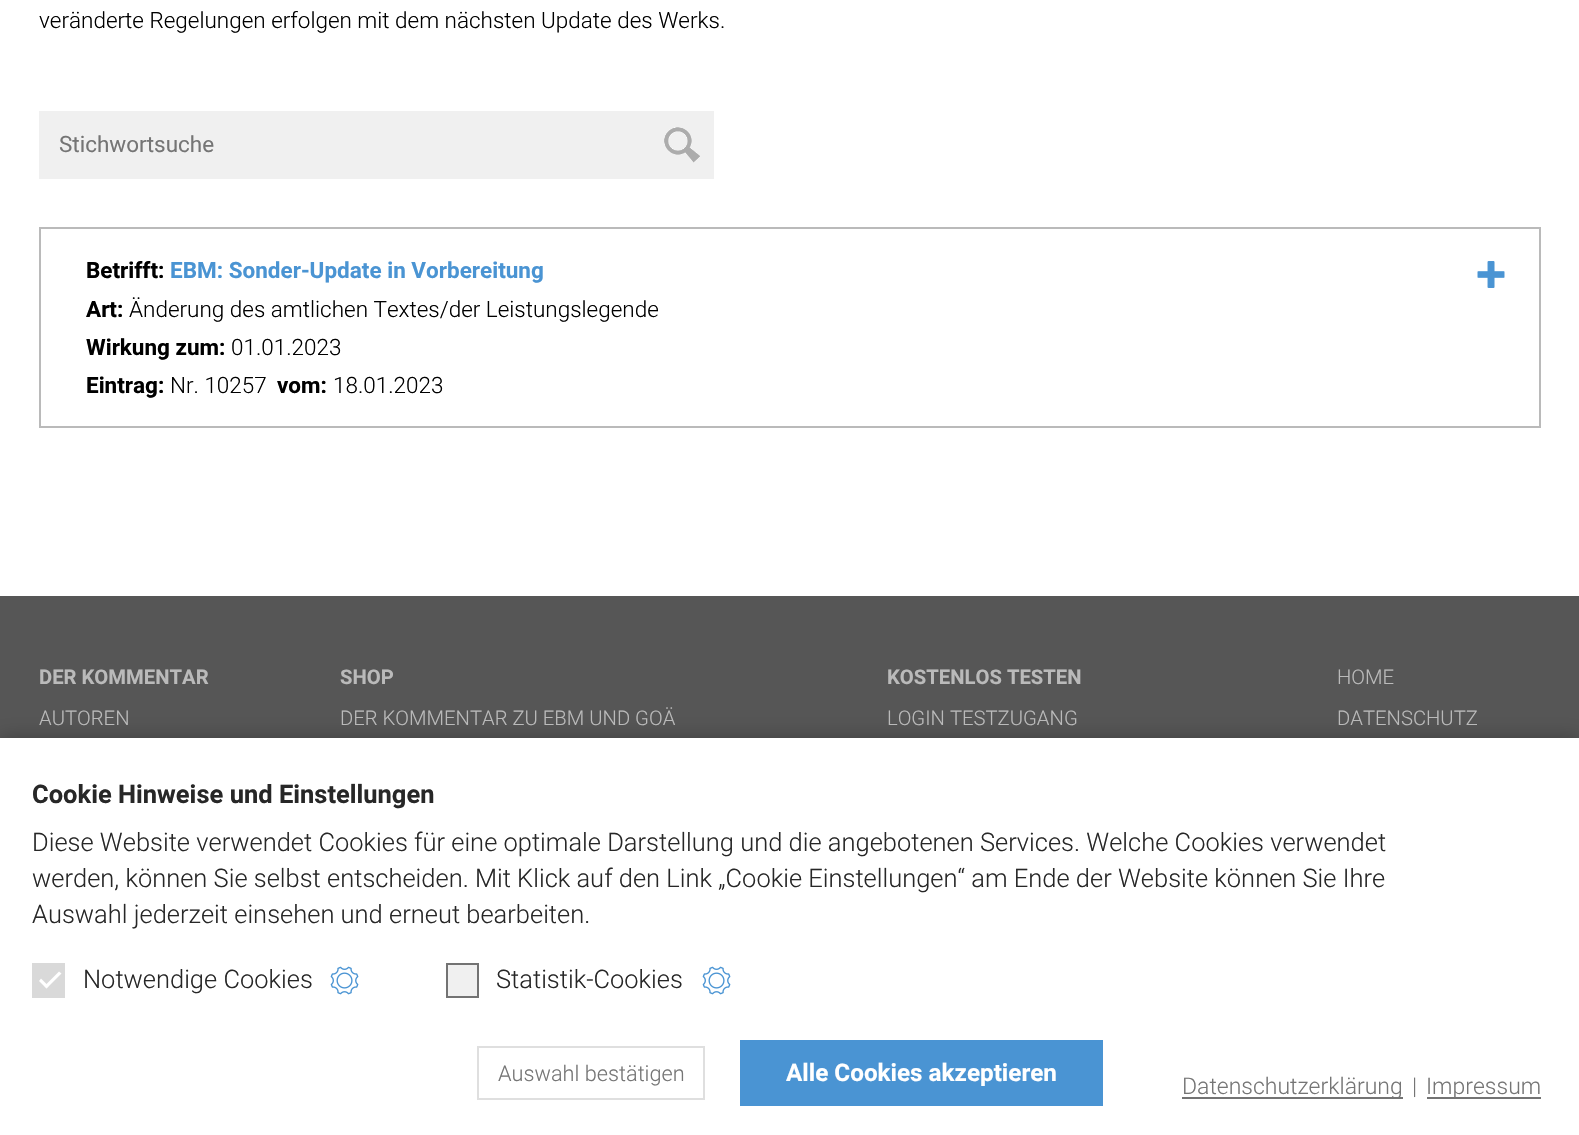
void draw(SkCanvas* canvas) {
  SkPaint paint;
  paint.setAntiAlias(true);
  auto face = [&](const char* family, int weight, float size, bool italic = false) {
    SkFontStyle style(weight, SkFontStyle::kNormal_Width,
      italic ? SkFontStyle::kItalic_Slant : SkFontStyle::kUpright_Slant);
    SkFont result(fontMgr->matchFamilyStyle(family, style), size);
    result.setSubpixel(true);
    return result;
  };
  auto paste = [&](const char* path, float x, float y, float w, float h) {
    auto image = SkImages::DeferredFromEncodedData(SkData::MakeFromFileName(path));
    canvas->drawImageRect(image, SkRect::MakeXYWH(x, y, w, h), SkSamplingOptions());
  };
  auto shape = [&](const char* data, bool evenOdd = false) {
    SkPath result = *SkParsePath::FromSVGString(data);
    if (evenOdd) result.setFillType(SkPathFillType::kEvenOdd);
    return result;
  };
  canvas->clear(0xffffffff);
  paint.setColor(0xfff0f0f0);
  canvas->drawRect(SkRect::MakeXYWH(39, 111, 675, 68), paint);
  paste("img/1.png", 664, 127, 36, 36);
  paint.setStroke(true);
  paint.setStrokeWidth(2);
  paint.setColor(0xffbababa);
  canvas->drawRect(SkRect::MakeXYWH(40, 228, 1500, 199), paint);
  paste("img/2.png", 1477, 261, 28, 27);
  paint.setStroke(false);
  paint.setColor(0xff565656);
  canvas->drawRect(SkRect::MakeXYWH(0, 596, 1579, 142), paint);
  paint.setColor(0x42000000);
  paint.setMaskFilter(SkMaskFilter::MakeBlur(kNormal_SkBlurStyle, 9));
  canvas->drawRect(SkRect::MakeXYWH(0, 737, 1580, 397), paint);
  paint.setMaskFilter(nullptr);
  paint.setColor(0xffffffff);
  canvas->drawRect(SkRect::MakeXYWH(0, 738, 1579, 397), paint);
  paint.setColor(0xffd9d9d9);
  canvas->drawRect(SkRect::MakeXYWH(32, 963, 33, 35), paint);
  paint.setColor(0xffffffff);
  canvas->drawPath(shape("M59 971.5L61.5 973.5L46.5 988.5L44.5 986Z"), paint);
  canvas->drawPath(shape("M41 978.5L48.5 986L46.5 988.5L39 981Z"), paint);
  paste("img/3.png", 330, 966, 29, 29);
  paint.setColor(0xfff0f0f0);
  canvas->drawRect(SkRect::MakeXYWH(447, 964, 31, 33), paint);
  paint.setStroke(true);
  paint.setColor(0xff737373);
  canvas->drawRect(SkRect::MakeXYWH(447, 964, 31, 33), paint);
  paste("img/3.png", 702, 966, 29, 29);
  paint.setColor(0xffdfdfdf);
  canvas->drawRect(SkRect::MakeXYWH(478, 1047, 226, 52), paint);
  paint.setStroke(false);
  {
    const struct { float x, y, w, h; SkColor color; } items[] = {
      {740, 1040, 363, 66, 0xff4a94d3},
      {1182, 1097, 221, 2, 0xff737373},
      {1427, 1097, 114, 2, 0xff737373},
    };
    for (auto [x, y, w, h, color] : items) {
      paint.setColor(color);
      canvas->drawRect(SkRect::MakeXYWH(x, y, w, h), paint);
    }
  }
  auto f0 = face("Roboto", 300, 22.5f);
  paint.setColor(0xff000000);
  canvas->drawString("veränderte Regelungen erfolgen mit dem nächsten Update des Werks.", 39, 28, f0, paint);
  auto f1 = face("Roboto", 400, 22.5f);
  paint.setColor(0xff757575);
  canvas->drawString("Stichwortsuche", 59, 152, f1, paint);
  auto f2 = face("Roboto", 700, 22.5f);
  paint.setColor(0xff000000);
  canvas->drawString("Betrifft:", 86, 278, f2, paint);
  paint.setColor(0xff4a94d3);
  canvas->drawString("EBM: Sonder-Update in Vorbereitung", 170, 278, f2, paint);
  paint.setColor(0xff000000);
  canvas->drawString("Art:", 86, 317, f2, paint);
  canvas->drawString("Änderung des amtlichen Textes/der Leistungslegende", 129, 317, f0, paint);
  canvas->drawString("Wirkung zum:", 86, 355, f2, paint);
  canvas->drawString("01.01.2023", 231, 355, f0, paint);
  canvas->drawString("Eintrag:", 86, 393, f2, paint);
  canvas->drawString("Nr. 10257", 170, 393, f0, paint);
  canvas->drawString("vom:", 277, 393, f2, paint);
  canvas->drawString("18.01.2023", 333, 393, f0, paint);
  auto f3 = face("Roboto", 700, 20.25f);
  paint.setColor(0xffbababa);
  canvas->drawString("DER KOMMENTAR", 39, 684, f3, paint);
  auto f4 = face("Roboto", 300, 20.25f);
  canvas->drawString("AUTOREN", 39, 725, f4, paint);
  canvas->drawString("SHOP", 340, 684, f3, paint);
  canvas->drawString("DER KOMMENTAR ZU EBM UND GOÄ", 340, 725, f4, paint);
  canvas->drawString("KOSTENLOS TESTEN", 887, 684, f3, paint);
  {
    const struct { const char* s; float x, y; } items[] = {
      {"LOGIN TESTZUGANG", 887, 725},
      {"HOME", 1337, 684},
      {"DATENSCHUTZ", 1337, 725},
    };
    for (auto [s, x, y] : items) {
      canvas->drawString(s, x, y, f4, paint);
    }
  }
  auto f5 = face("Roboto", 700, 25.5f);
  paint.setColor(0xff272727);
  canvas->drawString("Cookie Hinweise und Einstellungen", 32, 803, f5, paint);
  auto f6 = face("Roboto", 300, 25.5f);
  {
    const struct { const char* s; float x, y; } items[] = {
      {"Diese Website verwendet Cookies für eine optimale Darstellung und die angebotenen Services. Welche Cookies verwendet", 32, 851},
      {"werden, können Sie selbst entscheiden. Mit Klick auf den Link „Cookie Einstellungen“ am Ende der Website können Sie Ihre", 32, 887},
      {"Auswahl jederzeit einsehen und erneut bearbeiten.", 32, 923},
      {"Notwendige Cookies", 83, 988},
      {"Statistik-Cookies", 496, 988},
    };
    for (auto [s, x, y] : items) {
      canvas->drawString(s, x, y, f6, paint);
    }
  }
  auto f7 = face("Roboto", 300, 21.75f);
  paint.setColor(0xff757575);
  canvas->drawString("Auswahl bestätigen", 498, 1081, f7, paint);
  auto f8 = face("Roboto", 700, 24.25f);
  paint.setColor(0xffffffff);
  canvas->drawString("Alle Cookies akzeptieren", 786, 1081, f8, paint);
  auto f9 = face("Roboto", 300, 23);
  paint.setColor(0xff757575);
  {
    const struct { const char* s; float x, y; } items[] = {
      {"Datenschutzerklärung", 1182, 1094},
      {"|", 1412, 1094},
      {"Impressum", 1426, 1094},
    };
    for (auto [s, x, y] : items) {
      canvas->drawString(s, x, y, f9, paint);
    }
  }
}
